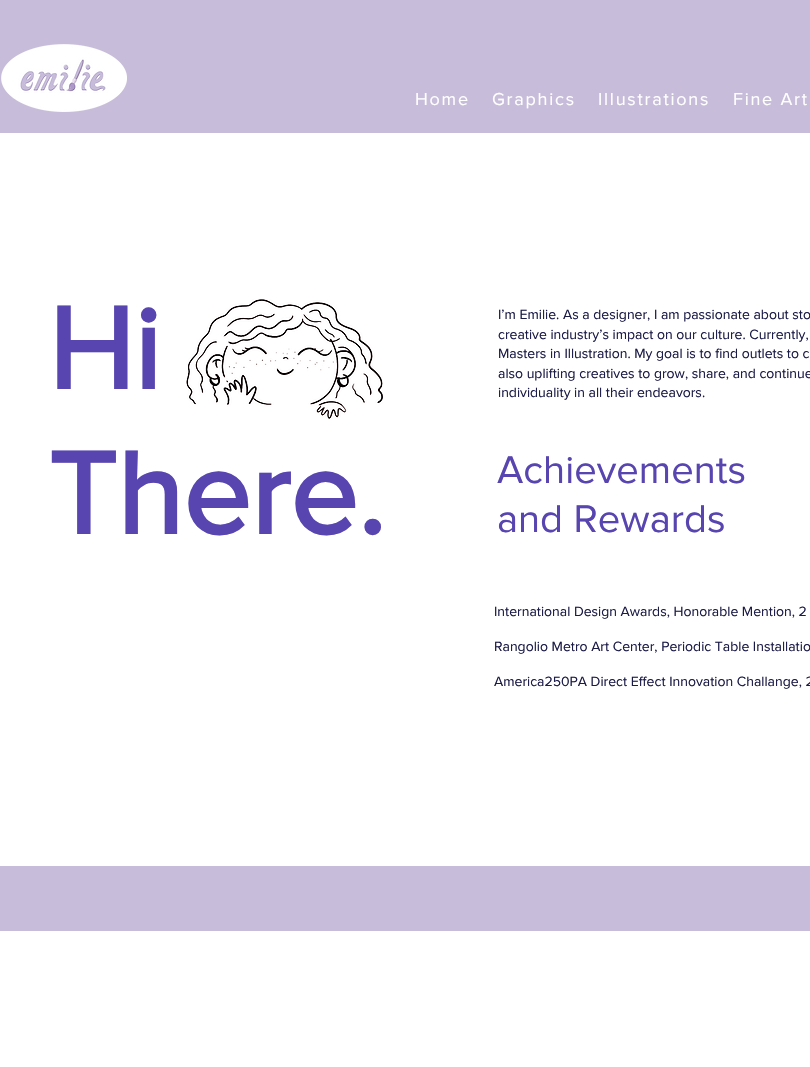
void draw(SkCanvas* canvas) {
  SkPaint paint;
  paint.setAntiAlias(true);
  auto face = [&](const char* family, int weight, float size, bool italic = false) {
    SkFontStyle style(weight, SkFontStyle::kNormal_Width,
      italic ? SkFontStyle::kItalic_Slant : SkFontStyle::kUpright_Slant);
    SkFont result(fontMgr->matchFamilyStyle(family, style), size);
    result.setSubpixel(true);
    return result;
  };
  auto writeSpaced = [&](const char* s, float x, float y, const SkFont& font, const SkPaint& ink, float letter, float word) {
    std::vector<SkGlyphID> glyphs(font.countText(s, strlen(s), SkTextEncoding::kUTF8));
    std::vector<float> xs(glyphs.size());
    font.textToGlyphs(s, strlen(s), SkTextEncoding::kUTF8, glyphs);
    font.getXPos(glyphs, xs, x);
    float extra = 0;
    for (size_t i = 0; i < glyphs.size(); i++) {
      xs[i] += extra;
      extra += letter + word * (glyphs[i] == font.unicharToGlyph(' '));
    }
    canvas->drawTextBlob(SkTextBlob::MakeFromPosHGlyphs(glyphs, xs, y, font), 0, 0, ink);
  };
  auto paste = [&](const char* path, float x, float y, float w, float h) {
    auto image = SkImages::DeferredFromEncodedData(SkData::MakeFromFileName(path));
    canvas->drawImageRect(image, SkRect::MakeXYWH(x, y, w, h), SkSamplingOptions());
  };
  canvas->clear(0xffffffff);
  paint.setColor(0xffc7bcd9);
  canvas->drawRect(SkRect::MakeXYWH(0, 0, 810, 133), paint);
  paste("img/1.png", 1, 44, 126, 68);
  paste("img/2.png", 186, 299, 197, 120);
  canvas->drawRect(SkRect::MakeXYWH(0, 866, 810, 65), paint);
  auto f0 = face("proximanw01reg", 400, 18);
  paint.setColor(0xffffffff);
  {
    const struct { const char* s; float x, y; } items[] = {
      {"Home", 415, 105},
      {"Graphics", 492, 105},
      {"Illustrations", 598, 105},
      {"Fine Art", 733, 105},
    };
    for (auto [s, x, y] : items) {
      writeSpaced(s, x, y, f0, paint, 1.75f, 0);
    }
  }
  auto f1 = face("proximanw01reg", 700, 120);
  paint.setColor(0xff5845b0);
  canvas->drawString("Hi", 48, 389, f1, paint);
  canvas->drawString("There.", 48, 534, f1, paint);
  auto f2 = face("proximanw01reg", 400, 14);
  paint.setColor(0xff1b1b47);
  {
    const struct { const char* s; float x, y; } items[] = {
      {"I’m Emilie. As a designer, I am passionate about sto", 498, 319},
      {"creative industry’s impact on our culture. Currently,", 498, 339},
      {"Masters in Illustration. My goal is to find outlets to c", 498, 358},
      {"also uplifting creatives to grow, share, and continue", 498, 378},
      {"individuality in all their endeavors.", 498, 397},
    };
    for (auto [s, x, y] : items) {
      canvas->drawString(s, x, y, f2, paint);
    }
  }
  auto f3 = face("proximanw01reg", 400, 40);
  paint.setColor(0xff5845b0);
  canvas->drawString("Achievements", 497, 483, f3, paint);
  canvas->drawString("and Rewards", 497, 532, f3, paint);
  paint.setColor(0xff1b1b47);
  {
    const struct { const char* s; float x, y; } items[] = {
      {"International Design Awards, Honorable Mention, 2", 494, 616},
      {"Rangolio Metro Art Center, Periodic Table Installatio", 494, 651},
      {"America250PA Direct Effect Innovation Challange, 2", 494, 686},
    };
    for (auto [s, x, y] : items) {
      canvas->drawString(s, x, y, f2, paint);
    }
  }
}
